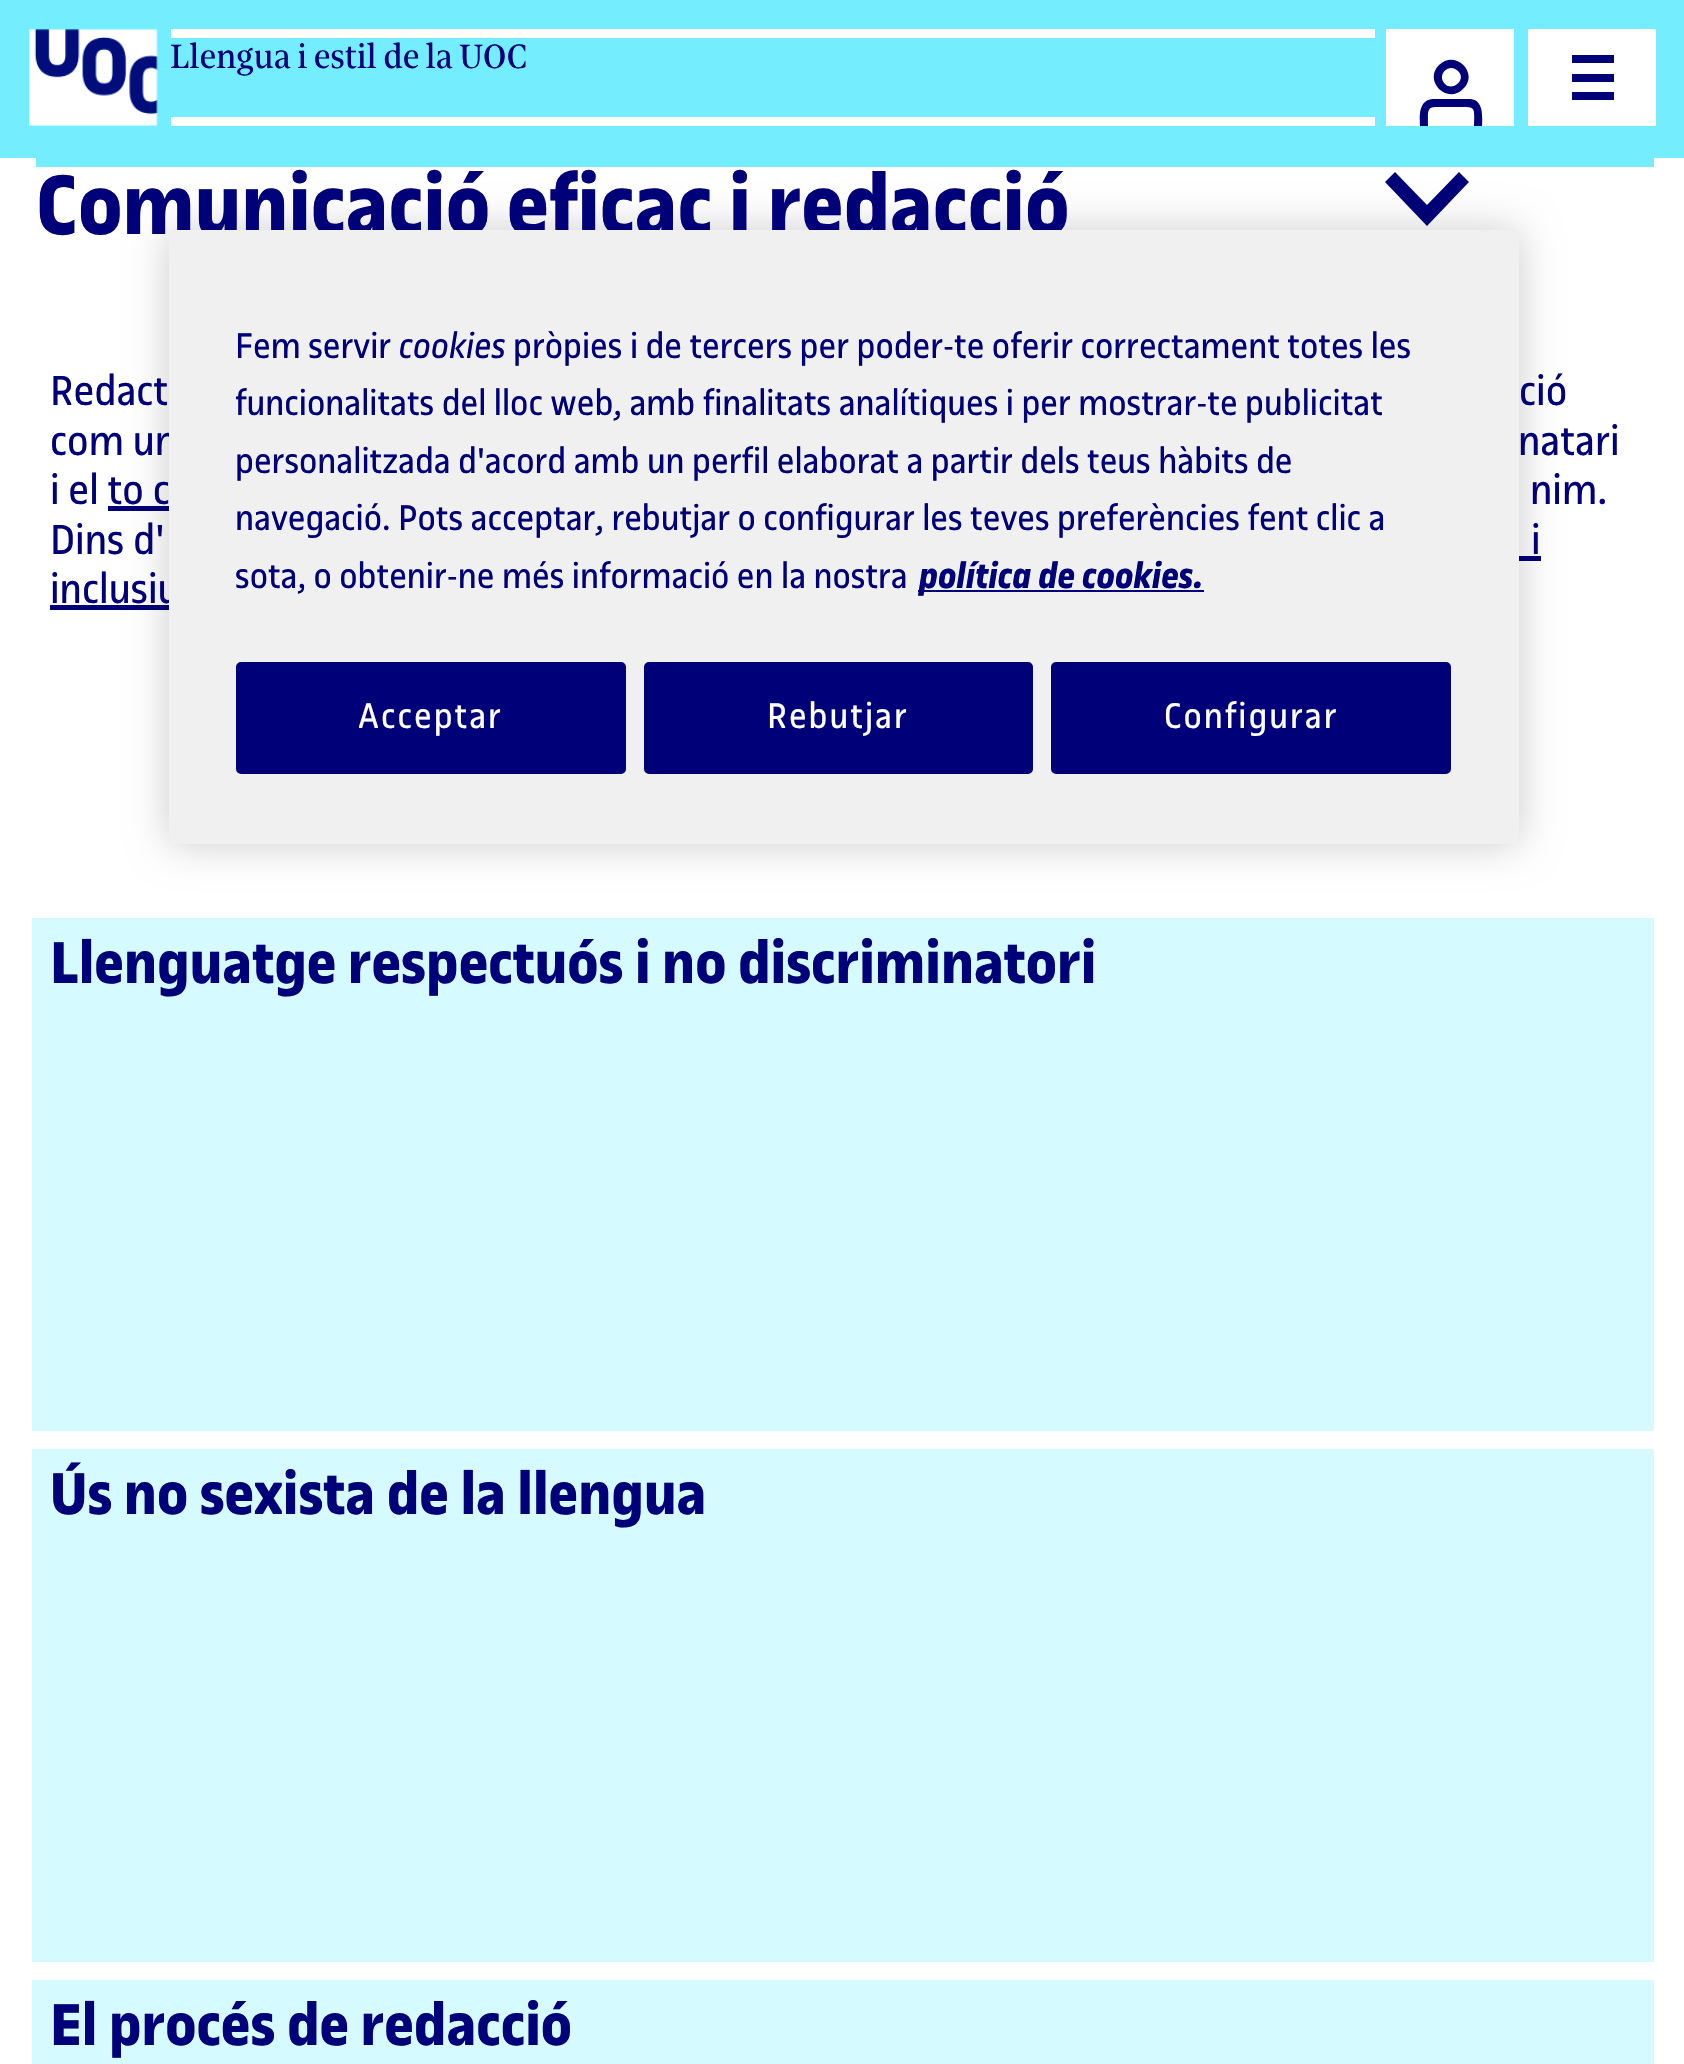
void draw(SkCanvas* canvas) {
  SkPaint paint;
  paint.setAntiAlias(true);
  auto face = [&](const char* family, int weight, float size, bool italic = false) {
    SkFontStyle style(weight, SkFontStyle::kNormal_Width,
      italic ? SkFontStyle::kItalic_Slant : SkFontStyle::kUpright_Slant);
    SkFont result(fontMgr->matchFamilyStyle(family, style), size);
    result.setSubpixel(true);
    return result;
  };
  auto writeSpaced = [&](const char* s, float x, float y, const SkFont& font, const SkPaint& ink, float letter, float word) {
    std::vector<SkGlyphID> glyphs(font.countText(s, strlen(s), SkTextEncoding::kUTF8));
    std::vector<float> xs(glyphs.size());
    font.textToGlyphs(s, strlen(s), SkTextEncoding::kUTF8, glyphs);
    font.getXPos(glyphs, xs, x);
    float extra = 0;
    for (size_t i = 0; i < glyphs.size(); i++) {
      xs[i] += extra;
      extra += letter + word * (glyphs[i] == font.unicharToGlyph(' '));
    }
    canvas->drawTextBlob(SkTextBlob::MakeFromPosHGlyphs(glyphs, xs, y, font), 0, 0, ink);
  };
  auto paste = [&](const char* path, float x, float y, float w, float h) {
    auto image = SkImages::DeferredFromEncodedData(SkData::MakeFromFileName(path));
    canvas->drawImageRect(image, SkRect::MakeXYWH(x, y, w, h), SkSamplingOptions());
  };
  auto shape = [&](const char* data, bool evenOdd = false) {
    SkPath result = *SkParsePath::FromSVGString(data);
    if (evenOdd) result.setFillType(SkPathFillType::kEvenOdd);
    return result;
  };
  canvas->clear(0xffffffff);
  paint.setColor(0xff73edff);
  canvas->drawRect(SkRect::MakeXYWH(0, 0, 1684, 158), paint);
  paste("img/1.png", 29, 29, 129, 97);
  {
    const struct { float x, y, w, h; SkColor color; } items[] = {
      {171, 29, 1204, 9, 0xffffffff},
      {171, 117, 1204, 9, 0xffffffff},
      {1386, 29, 128, 97, 0xffffffff},
    };
    for (auto [x, y, w, h, color] : items) {
      paint.setColor(color);
      canvas->drawRect(SkRect::MakeXYWH(x, y, w, h), paint);
    }
  }
  canvas->save();
  canvas->clipRect(SkRect::MakeXYWH(1386, 29, 128, 97));
  paint.setColor(0xff000078);
  canvas->drawPath(shape("M1482 129H1474C1474 104 1478 107 1451 107C1425 107 1428 104 1428 129H1420C1420 119 1417 100 1433 99H1470C1485 100 1482 119 1482 129ZM1463 89C1447 105 1423 81 1439 65C1455 49 1480 73 1463 89ZM1458 71C1449 62 1436 75 1445 84C1453 92 1467 79 1458 71Z"), paint);
  canvas->restore();
  paint.setColor(0xffffffff);
  canvas->drawRect(SkRect::MakeXYWH(1528, 29, 128, 97), paint);
  paint.setColor(0xff000078);
  canvas->drawPath(shape("M1572 92H1614V100H1572ZM1572 82V74H1614V82ZM1572 63V55H1614V63Z"), paint);
  paint.setColor(0xff73edff);
  canvas->drawRect(SkRect::MakeXYWH(36, 158, 1618, 9), paint);
  paint.setColor(0xff000078);
  canvas->drawPath(shape("M1427 226L1385 182L1395 172L1427 205L1459 172L1469 182Z"), paint);
  {
    const struct { float x, y, w, h; SkColor color; } items[] = {
      {108, 506, 61, 5, 0xff000078},
      {1519, 556, 22, 5, 0xff000078},
      {50, 605, 119, 5, 0xff000078},
      {32, 918, 1622, 513, 0xffd5faff},
      {32, 1449, 1622, 513, 0xffd5faff},
      {32, 1980, 1622, 84, 0xffd5faff},
    };
    for (auto [x, y, w, h, color] : items) {
      paint.setColor(color);
      canvas->drawRect(SkRect::MakeXYWH(x, y, w, h), paint);
    }
  }
  paint.setColor(0x33000000);
  paint.setMaskFilter(SkMaskFilter::MakeBlur(kNormal_SkBlurStyle, 20));
  canvas->drawRoundRect(SkRect::MakeXYWH(169, 230, 1350, 614), 6, 6, paint);
  paint.setMaskFilter(nullptr);
  auto f0 = face("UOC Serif", 400, 36);
  paint.setColor(0xff000078);
  canvas->drawString("Llengua i estil de la UOC", 170, 68, f0, paint);
  auto f1 = face("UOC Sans", 700, 90);
  canvas->drawString("Comunicació eficaç i redacció", 36, 234, f1, paint);
  auto f2 = face("UOC Sans", 400, 45);
  {
    const struct { const char* s; float x, y; } items[] = {
      {"Redact", 50, 405},
      {"ció", 1519, 405},
      {"com un", 50, 455},
      {"natari", 1518, 455},
      {"i el to c", 50, 504},
      {"nim.", 1530, 504},
      {"Dins d'", 50, 554},
      {"i", 1531, 554},
      {"inclusiu", 50, 603},
    };
    for (auto [s, x, y] : items) {
      canvas->drawString(s, x, y, f2, paint);
    }
  }
  auto f3 = face("UOC Sans", 700, 63);
  {
    const struct { const char* s; float x, y; } items[] = {
      {"Llenguatge respectuós i no discriminatori", 50, 983},
      {"Ús no sexista de la llengua", 50, 1514},
      {"El procés de redacció", 50, 2045},
    };
    for (auto [s, x, y] : items) {
      canvas->drawString(s, x, y, f3, paint);
    }
  }
  paint.setColor(0xfff0f0f0);
  canvas->drawRoundRect(SkRect::MakeXYWH(169, 230, 1350, 614), 6, 6, paint);
  auto f4 = face("UOC Sans", 400, 38.25f);
  paint.setColor(0xff000078);
  canvas->drawString("Fem servir", 235, 358, f4, paint);
  auto f5 = face("UOC Sans", 400, 38.25f, true);
  canvas->drawString("cookies", 399, 358, f5, paint);
  {
    const struct { const char* s; float x, y; } items[] = {
      {"pròpies i de tercers per poder-te oferir correctament totes les", 513, 358},
      {"funcionalitats del lloc web, amb finalitats analítiques i per mostrar-te publicitat", 235, 415},
      {"personalitzada d'acord amb un perfil elaborat a partir dels teus hàbits de", 235, 473},
      {"navegació. Pots acceptar, rebutjar o configurar les teves preferències fent clic a", 235, 530},
      {"sota, o obtenir-ne més informació en la nostra", 235, 588},
    };
    for (auto [s, x, y] : items) {
      canvas->drawString(s, x, y, f4, paint);
    }
  }
  canvas->drawRect(SkRect::MakeXYWH(918, 590, 286, 2), paint);
  auto f6 = face("UOC Sans", 700, 38.25f, true);
  canvas->drawString("política de cookies.", 919, 588, f6, paint);
  canvas->drawRoundRect(SkRect::MakeXYWH(237, 663, 388, 110), 4, 4, paint);
  paint.setStroke(true);
  paint.setStrokeWidth(2);
  canvas->drawRoundRect(SkRect::MakeXYWH(237, 663, 388, 110), 4, 4, paint);
  paint.setStroke(false);
  paint.setColor(0xffffffff);
  writeSpaced("Acceptar", 358, 728, f4, paint, 2, 0);
  paint.setColor(0xff000078);
  canvas->drawRoundRect(SkRect::MakeXYWH(645, 663, 387, 110), 4, 4, paint);
  paint.setStroke(true);
  canvas->drawRoundRect(SkRect::MakeXYWH(645, 663, 387, 110), 4, 4, paint);
  paint.setStroke(false);
  paint.setColor(0xffffffff);
  writeSpaced("Rebutjar", 767, 728, f4, paint, 2, 0);
  paint.setColor(0xff000078);
  canvas->drawRoundRect(SkRect::MakeXYWH(1052, 663, 398, 110), 4, 4, paint);
  paint.setStroke(true);
  canvas->drawRoundRect(SkRect::MakeXYWH(1052, 663, 398, 110), 4, 4, paint);
  paint.setStroke(false);
  paint.setColor(0xffffffff);
  writeSpaced("Configurar", 1164, 728, f4, paint, 2, 0);
}
